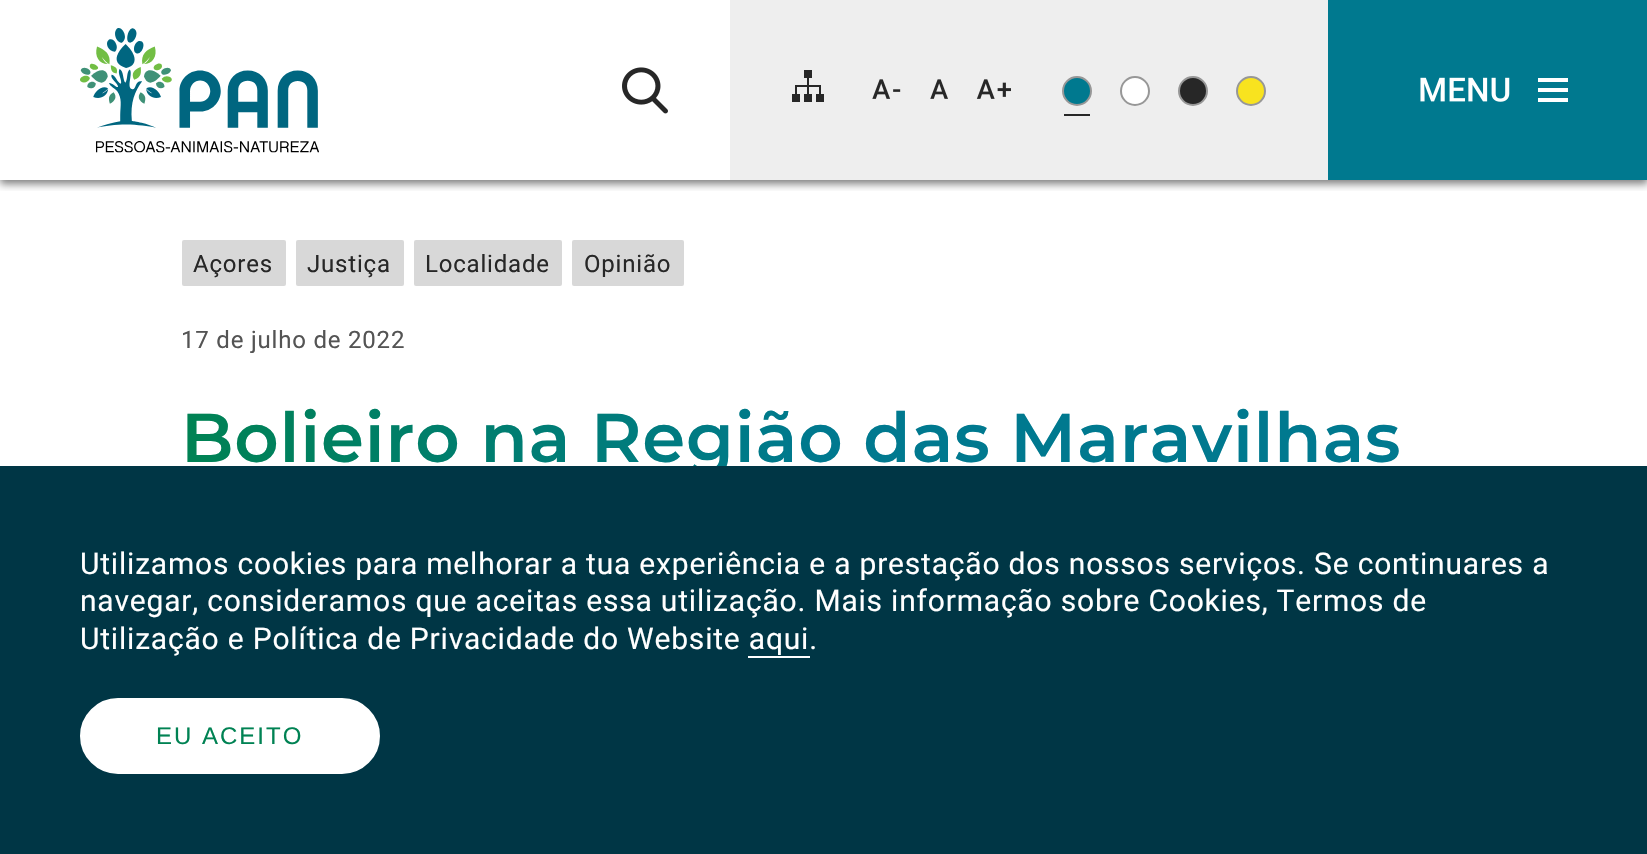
void draw(SkCanvas* canvas) {
  SkPaint paint;
  paint.setAntiAlias(true);
  auto face = [&](const char* family, int weight, float size, bool italic = false) {
    SkFontStyle style(weight, SkFontStyle::kNormal_Width,
      italic ? SkFontStyle::kItalic_Slant : SkFontStyle::kUpright_Slant);
    SkFont result(fontMgr->matchFamilyStyle(family, style), size);
    result.setSubpixel(true);
    return result;
  };
  auto writeSpaced = [&](const char* s, float x, float y, const SkFont& font, const SkPaint& ink, float letter, float word) {
    std::vector<SkGlyphID> glyphs(font.countText(s, strlen(s), SkTextEncoding::kUTF8));
    std::vector<float> xs(glyphs.size());
    font.textToGlyphs(s, strlen(s), SkTextEncoding::kUTF8, glyphs);
    font.getXPos(glyphs, xs, x);
    float extra = 0;
    for (size_t i = 0; i < glyphs.size(); i++) {
      xs[i] += extra;
      extra += letter + word * (glyphs[i] == font.unicharToGlyph(' '));
    }
    canvas->drawTextBlob(SkTextBlob::MakeFromPosHGlyphs(glyphs, xs, y, font), 0, 0, ink);
  };
  auto paste = [&](const char* path, float x, float y, float w, float h) {
    auto image = SkImages::DeferredFromEncodedData(SkData::MakeFromFileName(path));
    canvas->drawImageRect(image, SkRect::MakeXYWH(x, y, w, h), SkSamplingOptions());
  };
  canvas->clear(0xffffffff);
  canvas->save();
  canvas->clipRect(SkRect::MakeXYWH(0, 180, 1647, 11));
  paint.setColor(0x80000000);
  paint.setMaskFilter(SkMaskFilter::MakeBlur(kNormal_SkBlurStyle, 4));
  canvas->drawRect(SkRect::MakeXYWH(0, 4, 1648, 180), paint);
  paint.setMaskFilter(nullptr);
  canvas->restore();
  paste("img/1.png", 80, 28, 239, 125);
  paste("img/2.png", 622, 67, 46, 47);
  paint.setColor(0xffeeeeee);
  canvas->drawRect(SkRect::MakeXYWH(730, 0, 598, 180), paint);
  paste("img/3.png", 792, 70, 32, 32);
  paste("img/4.png", 872, 79, 29, 20);
  paste("img/5.png", 930, 79, 18, 20);
  paste("img/6.png", 976, 79, 35, 20);
  paint.setColor(0xff00798f);
  canvas->drawCircle(1077, 91, 14, paint);
  paint.setStroke(true);
  paint.setStrokeWidth(2);
  paint.setColor(0xff979797);
  canvas->drawCircle(1077, 91, 14, paint);
  paint.setStroke(false);
  paint.setColor(0xff272727);
  canvas->drawRect(SkRect::MakeXYWH(1064, 114, 26, 2), paint);
  paint.setColor(0xffffffff);
  canvas->drawCircle(1135, 91, 14, paint);
  paint.setStroke(true);
  paint.setColor(0xff979797);
  canvas->drawCircle(1135, 91, 14, paint);
  paint.setStroke(false);
  paint.setColor(0xff272727);
  canvas->drawCircle(1193, 91, 14, paint);
  paint.setStroke(true);
  paint.setColor(0xff979797);
  canvas->drawCircle(1193, 91, 14, paint);
  paint.setStroke(false);
  paint.setColor(0xfff8e31f);
  canvas->drawCircle(1251, 91, 14, paint);
  paint.setStroke(true);
  paint.setColor(0xff979797);
  canvas->drawCircle(1251, 91, 14, paint);
  paint.setStroke(false);
  paint.setColor(0xff00798f);
  canvas->drawRect(SkRect::MakeXYWH(1328, 0, 319, 180), paint);
  paste("img/7.png", 1420, 77, 90, 25);
  {
    const struct { float x, y, w, h; SkColor color; } items[] = {
      {1538, 78, 30, 4, 0xffffffff},
      {1538, 88, 30, 4, 0xffffffff},
      {1538, 98, 30, 4, 0xffffffff},
    };
    for (auto [x, y, w, h, color] : items) {
      paint.setColor(color);
      canvas->drawRect(SkRect::MakeXYWH(x, y, w, h), paint);
    }
  }
  paint.setColor(0xffd8d8d8);
  canvas->drawRoundRect(SkRect::MakeXYWH(182, 240, 104, 46), 2, 2, paint);
  canvas->drawRoundRect(SkRect::MakeXYWH(296, 240, 108, 46), 2, 2, paint);
  canvas->drawRoundRect(SkRect::MakeXYWH(414, 240, 148, 46), 2, 2, paint);
  canvas->drawRoundRect(SkRect::MakeXYWH(572, 240, 112, 46), 2, 2, paint);
  auto f0 = face("Roboto", 400, 24);
  paint.setColor(0xff272727);
  {
    const struct { const char* s; float x, y; } items[] = {
      {"Açores", 193, 272},
      {"Justiça", 307, 272},
      {"Localidade", 425, 272},
      {"Opinião", 584, 272},
    };
    for (auto [s, x, y] : items) {
      writeSpaced(s, x, y, f0, paint, 0.8f, 0);
    }
  }
  paint.setColor(0xff545454);
  writeSpaced("17 de julho de 2022", 181, 348, f0, paint, 0.8f, 0);
  auto f1 = face("Montserrat", 600, 69);
  {
    const SkColor colors[] = {0xff008253, 0xff00798f};
    const float stops[] = {0, 0.5f};
    const SkPoint ends[] = {{181, 439}, {1467, 439}};
    paint.setShader(SkGradientShader::MakeLinear(ends, colors, stops, 2, SkTileMode::kClamp));
    paint.setAlpha(255);
  }
  writeSpaced("Bolieiro na Região das Maravilhas", 181, 462, f1, paint, 0.8f, 0);
  paint.setShader(nullptr);
  paint.setColor(0xff003645);
  canvas->drawRect(SkRect::MakeXYWH(0, 466, 1647, 388), paint);
  auto f2 = face("Roboto", 400, 30);
  paint.setColor(0xffffffff);
  {
    const struct { const char* s; float x, y; } items[] = {
      {"Utilizamos cookies para melhorar a tua experiência e a prestação dos nossos serviços. Se continuares a", 80, 574},
      {"navegar, consideramos que aceitas essa utilização. Mais informação sobre Cookies, Termos de", 80, 611},
      {"Utilização e Política de Privacidade do Website aqui.", 80, 649},
    };
    for (auto [s, x, y] : items) {
      writeSpaced(s, x, y, f2, paint, 0.8f, 0);
    }
  }
  canvas->drawRect(SkRect::MakeXYWH(748, 656, 62, 2), paint);
  canvas->drawRoundRect(SkRect::MakeXYWH(81, 699, 298, 74), 37, 37, paint);
  paint.setStroke(true);
  canvas->drawRoundRect(SkRect::MakeXYWH(81, 699, 298, 74), 37, 37, paint);
  auto f3 = face("Liberation Sans", 400, 24);
  paint.setStroke(false);
  paint.setColor(0xff008253);
  writeSpaced("EU ACEITO", 156, 744, f3, paint, 2, 0);
}
